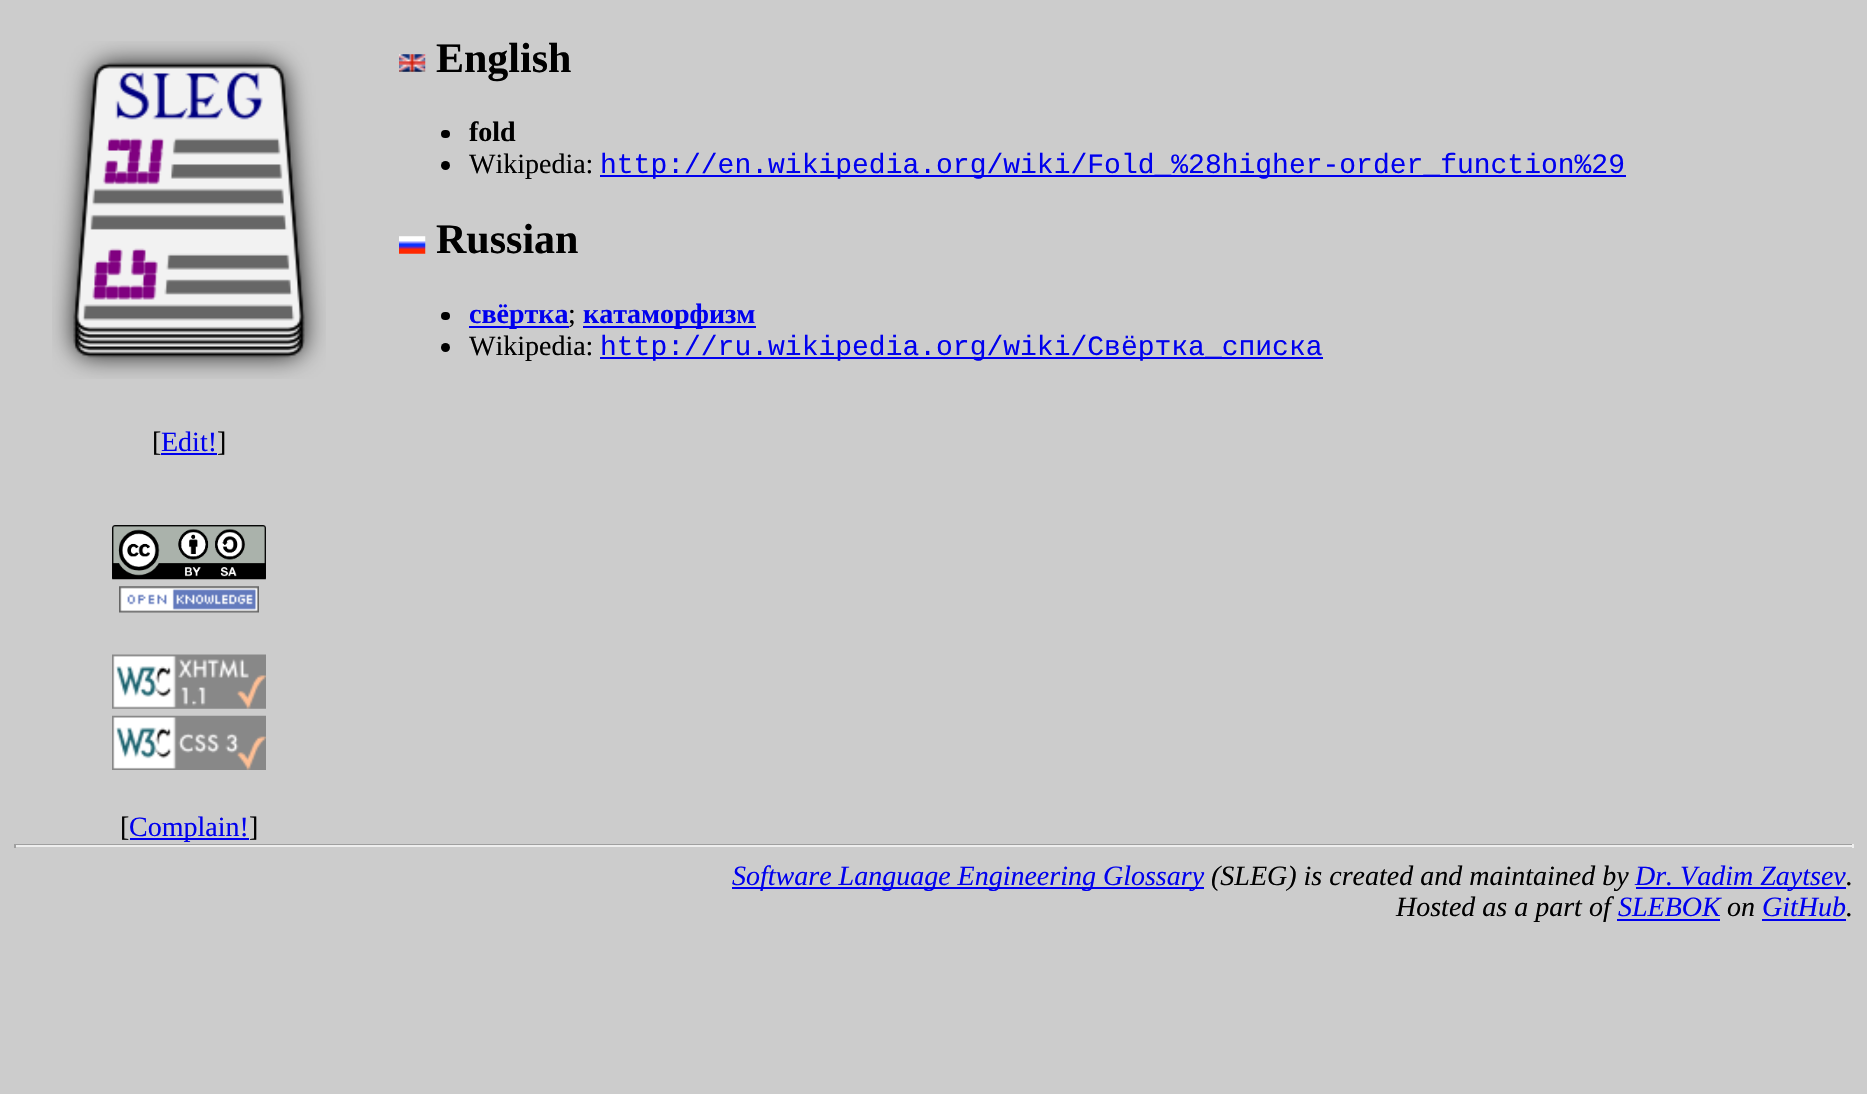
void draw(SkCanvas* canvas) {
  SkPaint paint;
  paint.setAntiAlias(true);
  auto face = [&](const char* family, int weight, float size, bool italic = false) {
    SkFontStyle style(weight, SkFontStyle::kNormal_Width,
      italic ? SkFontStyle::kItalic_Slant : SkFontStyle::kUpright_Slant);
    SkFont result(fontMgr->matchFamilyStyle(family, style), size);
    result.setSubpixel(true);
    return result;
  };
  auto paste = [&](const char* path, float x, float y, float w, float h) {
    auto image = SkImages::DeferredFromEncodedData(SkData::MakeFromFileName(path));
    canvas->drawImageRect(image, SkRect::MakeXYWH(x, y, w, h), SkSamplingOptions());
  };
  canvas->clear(0xffcccccc);
  paste("img/1.png", 399, 54, 27, 18);
  paint.setColor(0xff000000);
  canvas->drawRoundRect(SkRect::MakeXYWH(441, 130, 9, 8), 4, 4, paint);
  canvas->drawCircle(445.5f, 165.5f, 4.5f, paint);
  paint.setColor(0xff0000ee);
  canvas->drawRect(SkRect::MakeXYWH(600, 175, 1026, 2), paint);
  paste("img/2.png", 399, 236, 27, 18);
  paint.setColor(0xff000000);
  canvas->drawRoundRect(SkRect::MakeXYWH(441, 312, 9, 8), 4, 4, paint);
  paint.setColor(0xff0000ee);
  canvas->drawRect(SkRect::MakeXYWH(469, 326, 100, 2), paint);
  canvas->drawRect(SkRect::MakeXYWH(583, 326, 173, 2), paint);
  paint.setColor(0xff000000);
  canvas->drawCircle(445.5f, 347.5f, 4.5f, paint);
  paint.setColor(0xff0000ee);
  canvas->drawRect(SkRect::MakeXYWH(600, 357, 723, 2), paint);
  paste("img/3.png", 52, 41, 274, 338);
  canvas->drawRect(SkRect::MakeXYWH(161, 453, 56, 2), paint);
  paste("img/4.png", 112, 525, 154, 55);
  paste("img/5.png", 119, 586, 140, 27);
  paste("img/6.png", 112, 654, 154, 55);
  paste("img/7.png", 112, 715, 154, 55);
  {
    const struct { float x, y, w, h; SkColor color; } items[] = {
      {130, 838, 119, 2, 0xff0000ee},
      {14, 844, 1839, 1, 0xff9f9f9f},
      {1852, 844, 2, 4, 0xffeeeeee},
      {14, 845, 1839, 2, 0xffeeeeee},
      {14, 844, 2, 4, 0xff9f9f9f},
      {732, 887, 472, 2, 0xff0000ee},
      {1636, 887, 210, 2, 0xff0000ee},
      {1617, 919, 103, 2, 0xff0000ee},
      {1762, 919, 84, 2, 0xff0000ee},
    };
    for (auto [x, y, w, h, color] : items) {
      paint.setColor(color);
      canvas->drawRect(SkRect::MakeXYWH(x, y, w, h), paint);
    }
  }
  auto f0 = face("Liberation Serif", 700, 42);
  paint.setColor(0xff000000);
  canvas->drawString("English", 436, 72, f0, paint);
  auto f1 = face("Liberation Serif", 700, 28);
  canvas->drawString("fold", 469, 141, f1, paint);
  auto f2 = face("Liberation Serif", 400, 28);
  canvas->drawString("Wikipedia:", 469, 173, f2, paint);
  auto f3 = face("Liberation Mono", 400, 28);
  paint.setColor(0xff0000ee);
  canvas->drawString("http://en.wikipedia.org/wiki/Fold_%28higher-order_function%29", 600, 173, f3, paint);
  paint.setColor(0xff000000);
  canvas->drawString("Russian", 436, 253, f0, paint);
  paint.setColor(0xff0000ee);
  canvas->drawString("свёртка", 469, 323, f1, paint);
  paint.setColor(0xff000000);
  canvas->drawString(";", 568, 323, f2, paint);
  paint.setColor(0xff0000ee);
  canvas->drawString("катаморфизм", 583, 323, f1, paint);
  paint.setColor(0xff000000);
  canvas->drawString("Wikipedia:", 469, 355, f2, paint);
  paint.setColor(0xff0000ee);
  canvas->drawString("http://ru.wikipedia.org/wiki/Свёртка_списка", 600, 355, f3, paint);
  paint.setColor(0xff000000);
  canvas->drawString("[", 152, 451, f2, paint);
  paint.setColor(0xff0000ee);
  canvas->drawString("Edit!", 161, 451, f2, paint);
  paint.setColor(0xff000000);
  canvas->drawString("]", 217, 451, f2, paint);
  canvas->drawString("[", 120, 836, f2, paint);
  paint.setColor(0xff0000ee);
  canvas->drawString("Complain!", 129, 836, f2, paint);
  paint.setColor(0xff000000);
  canvas->drawString("]", 249, 836, f2, paint);
  auto f4 = face("Liberation Serif", 400, 28, true);
  paint.setColor(0xff0000ee);
  canvas->drawString("Software Language Engineering Glossary", 732, 885, f4, paint);
  paint.setColor(0xff000000);
  canvas->drawString("(SLEG) is created and maintained by", 1211, 885, f4, paint);
  paint.setColor(0xff0000ee);
  canvas->drawString("Dr. Vadim Zaytsev", 1635, 885, f4, paint);
  paint.setColor(0xff000000);
  canvas->drawString(".", 1846, 885, f4, paint);
  canvas->drawString("Hosted as a part of", 1396, 916, f4, paint);
  paint.setColor(0xff0000ee);
  canvas->drawString("SLEBOK", 1618, 916, f4, paint);
  paint.setColor(0xff000000);
  canvas->drawString("on", 1727, 916, f4, paint);
  paint.setColor(0xff0000ee);
  canvas->drawString("GitHub", 1762, 916, f4, paint);
  paint.setColor(0xff000000);
  canvas->drawString(".", 1846, 916, f4, paint);
}
